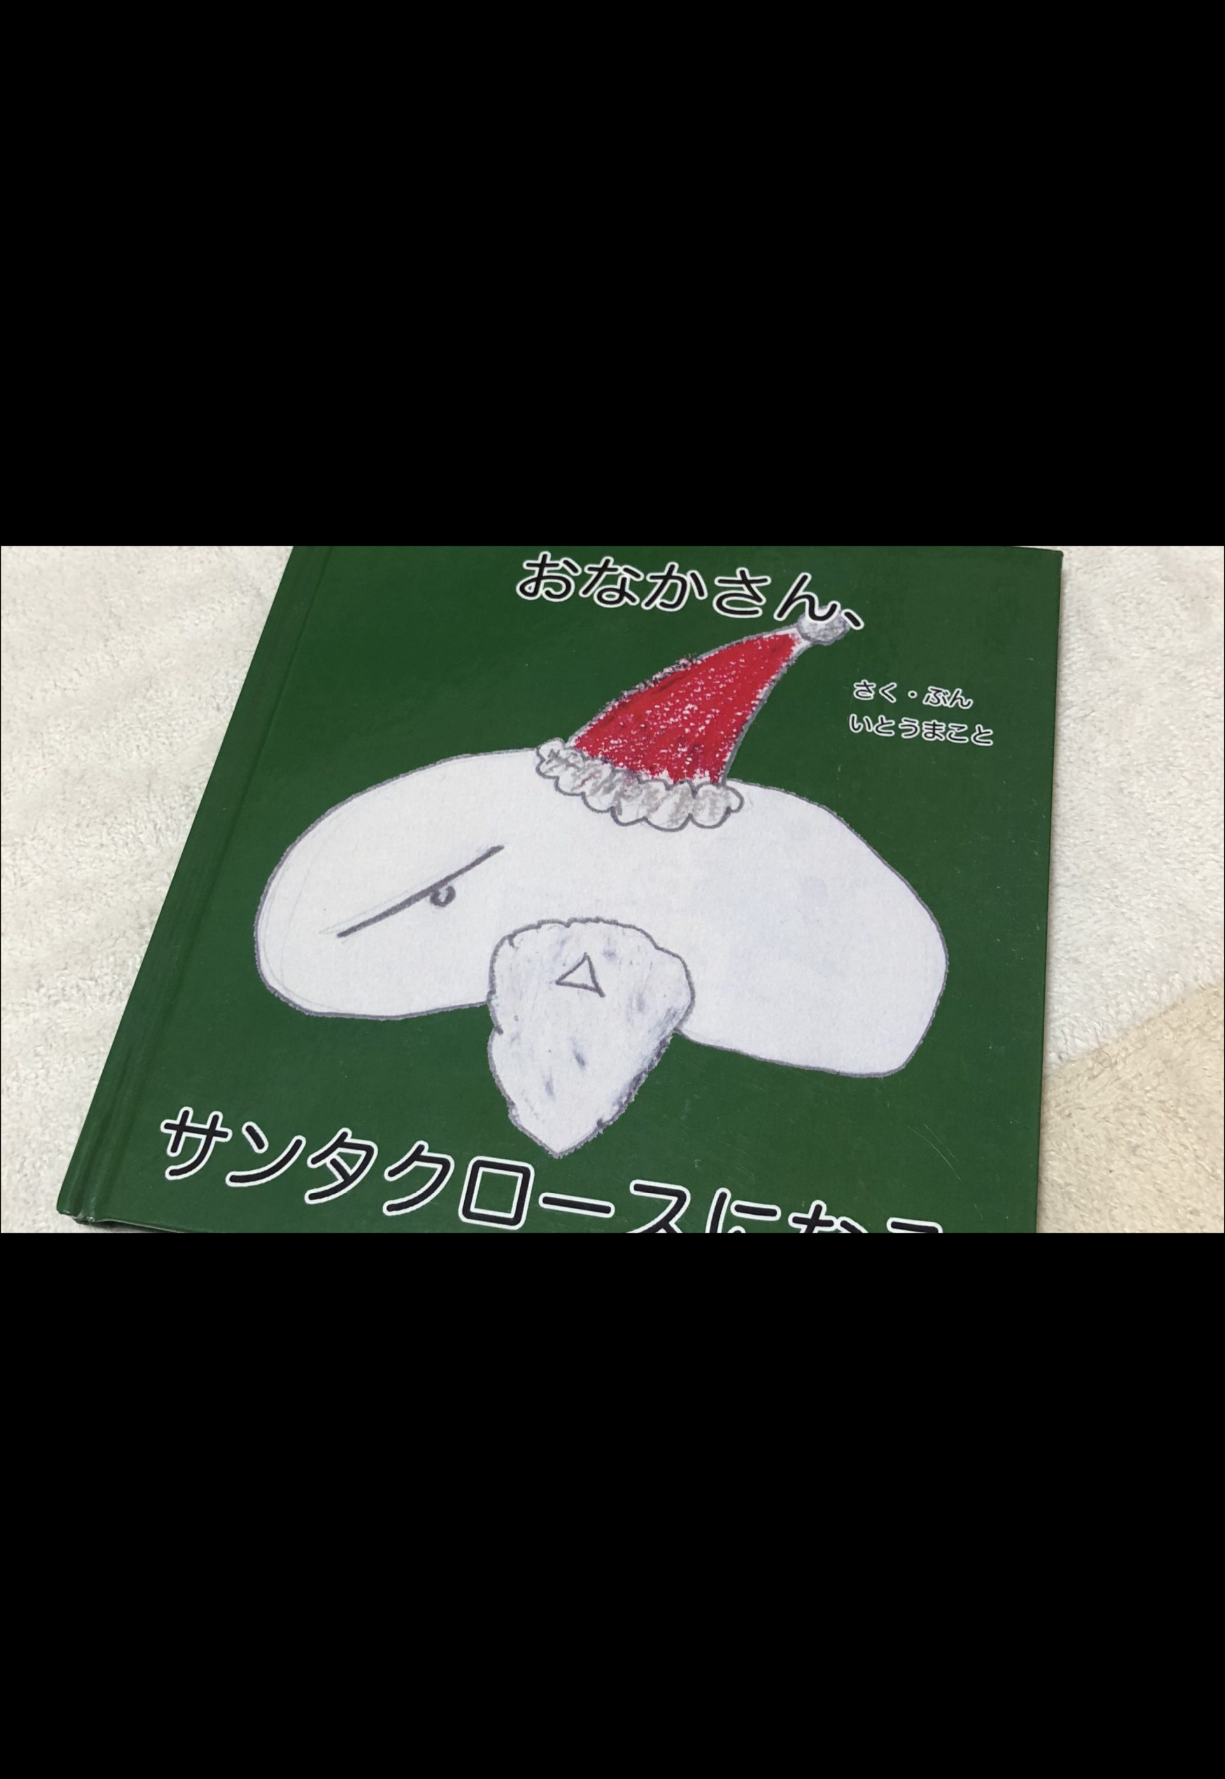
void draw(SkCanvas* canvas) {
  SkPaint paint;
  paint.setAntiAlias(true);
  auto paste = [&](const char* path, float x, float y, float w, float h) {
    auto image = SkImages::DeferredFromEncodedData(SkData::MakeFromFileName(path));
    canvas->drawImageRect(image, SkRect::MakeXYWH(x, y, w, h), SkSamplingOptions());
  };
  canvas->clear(0xff000000);
  paste("img/1.png", 0, 545, 1225, 689);
}
